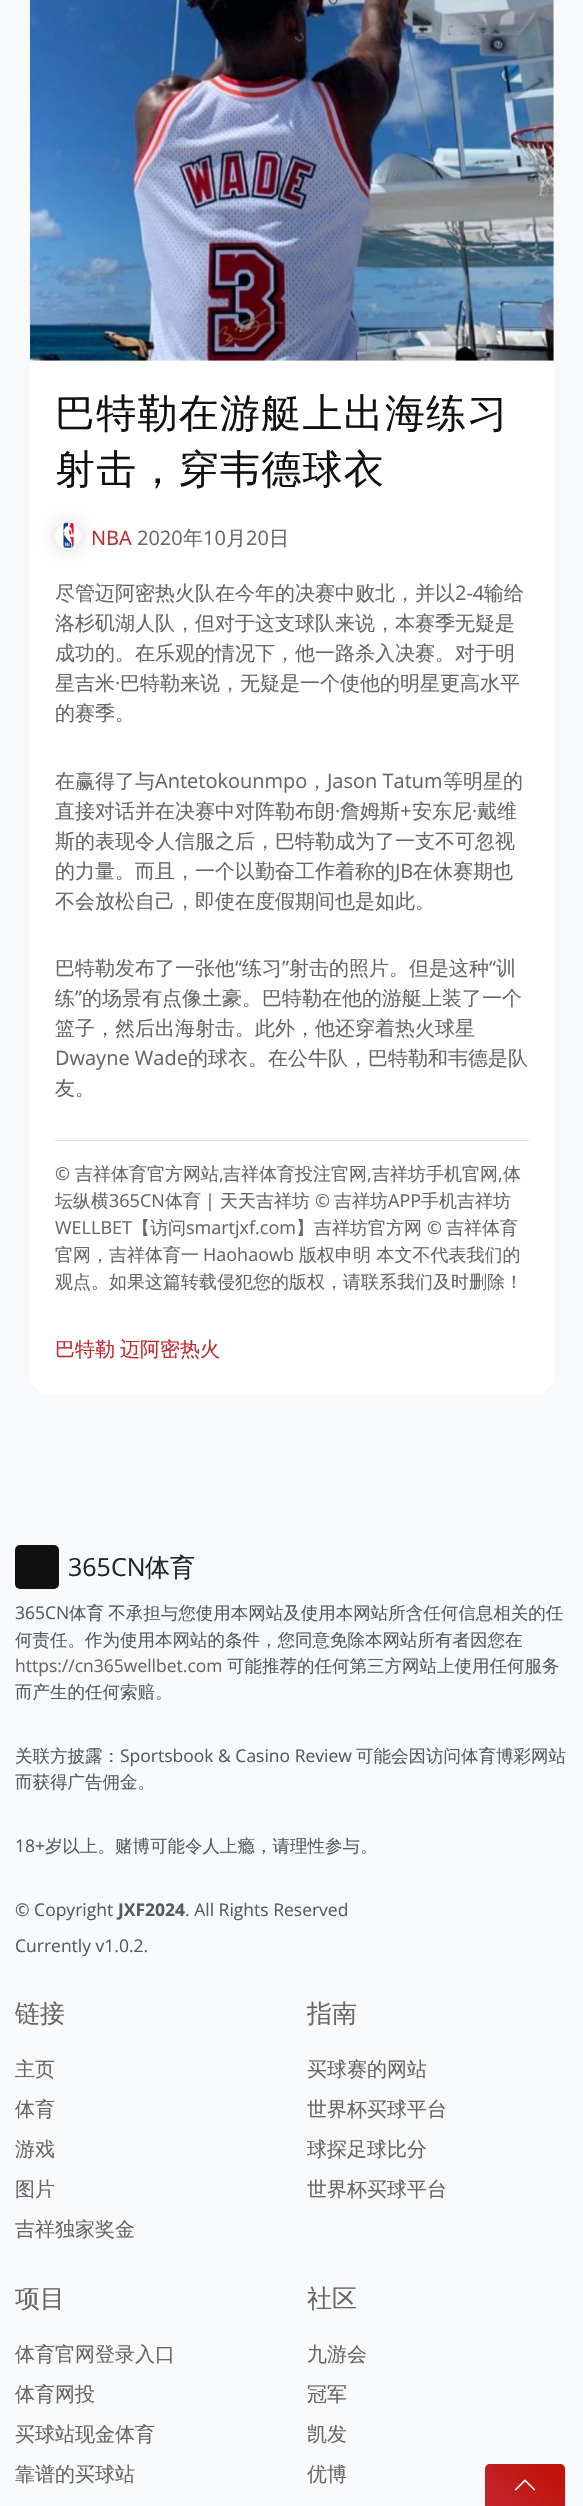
void draw(SkCanvas* canvas) {
  SkPaint paint;
  paint.setAntiAlias(true);
  auto face = [&](const char* family, int weight, float size, bool italic = false) {
    SkFontStyle style(weight, SkFontStyle::kNormal_Width,
      italic ? SkFontStyle::kItalic_Slant : SkFontStyle::kUpright_Slant);
    SkFont result(fontMgr->matchFamilyStyle(family, style), size);
    result.setSubpixel(true);
    return result;
  };
  auto writeSpaced = [&](const char* s, float x, float y, const SkFont& font, const SkPaint& ink, float letter, float word) {
    std::vector<SkGlyphID> glyphs(font.countText(s, strlen(s), SkTextEncoding::kUTF8));
    std::vector<float> xs(glyphs.size());
    font.textToGlyphs(s, strlen(s), SkTextEncoding::kUTF8, glyphs);
    font.getXPos(glyphs, xs, x);
    float extra = 0;
    for (size_t i = 0; i < glyphs.size(); i++) {
      xs[i] += extra;
      extra += letter + word * (glyphs[i] == font.unicharToGlyph(' '));
    }
    canvas->drawTextBlob(SkTextBlob::MakeFromPosHGlyphs(glyphs, xs, y, font), 0, 0, ink);
  };
  auto paste = [&](const char* path, float x, float y, float w, float h) {
    auto image = SkImages::DeferredFromEncodedData(SkData::MakeFromFileName(path));
    canvas->drawImageRect(image, SkRect::MakeXYWH(x, y, w, h), SkSamplingOptions());
  };
  auto shape = [&](const char* data, bool evenOdd = false) {
    SkPath result = *SkParsePath::FromSVGString(data);
    if (evenOdd) result.setFillType(SkPathFillType::kEvenOdd);
    return result;
  };
  canvas->clear(0xfff8f9fa);
  paint.setColor(0xffffffff);
  canvas->drawRoundRect(SkRect::MakeXYWH(30, -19, 524, 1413), 19, 19, paint);
  paste("img/1.png", 30, 0, 524, 361);
  canvas->save();
  canvas->clipPath(shape("M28 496H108V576H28ZM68 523C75 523 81 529 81 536C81 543 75 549 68 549C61 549 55 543 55 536C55 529 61 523 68 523Z", true), true);
  paint.setColor(0x33000000);
  paint.setMaskFilter(SkMaskFilter::MakeBlur(kNormal_SkBlurStyle, 9));
  canvas->drawRoundRect(SkRect::MakeXYWH(56, 524, 24, 24), 12, 12, paint);
  paint.setMaskFilter(nullptr);
  canvas->restore();
  paste("img/2.png", 63, 522, 11, 26);
  paint.setColor(0xffdddddd);
  canvas->drawRect(SkRect::MakeXYWH(55, 1140, 474, 1), paint);
  paint.setColor(0xff111111);
  canvas->drawRoundRect(SkRect::MakeXYWH(15, 1545, 44, 44), 5, 5, paint);
  {
    const SkColor colors[] = {0xffc3272f, 0xffc10e04};
    const float stops[] = {0, 1};
    const SkPoint ends[] = {{494, 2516}, {556, 2454}};
    paint.setShader(SkGradientShader::MakeLinear(ends, colors, stops, 2, SkTileMode::kClamp));
    paint.setAlpha(255);
  }
  canvas->drawPath(shape("M490 2464H560C563 2464 565 2466 565 2469V2506H485V2469C485 2466 487 2464 490 2464Z"), paint);
  paste("img/3.png", 514, 2479, 22, 12);
  auto f0 = face("WenQuanYi Zen Hei", 500, 40);
  paint.setShader(nullptr);
  paint.setColor(0xff111111);
  writeSpaced("巴特勒在游艇上出海练习", 55, 427, f0, paint, 1.25f, 0);
  writeSpaced("射击，穿韦德球衣", 55, 483, f0, paint, 1.25f, 0);
  auto f1 = face("Open Sans", 400, 20);
  paint.setColor(0xffc3272f);
  canvas->drawString("NBA", 91, 545, f1, paint);
  paint.setColor(0xff666666);
  canvas->drawString("2020", 137, 545, f1, paint);
  auto f2 = face("WenQuanYi Zen Hei", 500, 20);
  canvas->drawString("年", 183, 545, f2, paint);
  canvas->drawString("10", 203, 545, f1, paint);
  canvas->drawString("月", 226, 545, f2, paint);
  canvas->drawString("20", 246, 545, f1, paint);
  canvas->drawString("日", 269, 545, f2, paint);
  canvas->drawString("尽管迈阿密热火队在今年的决赛中败北，并以", 55, 600, f2, paint);
  canvas->drawString("2-4", 455, 600, f1, paint);
  {
    const struct { const char* s; float x, y; } items[] = {
      {"输给", 484, 600},
      {"洛杉矶湖人队，但对于这支球队来说，本赛季无疑是", 55, 630},
      {"成功的。在乐观的情况下，他一路杀入决赛。对于明", 55, 660},
      {"星吉米", 55, 690},
    };
    for (auto [s, x, y] : items) {
      canvas->drawString(s, x, y, f2, paint);
    }
  }
  canvas->drawString("·", 115, 690, f1, paint);
  {
    const struct { const char* s; float x, y; } items[] = {
      {"巴特勒来说，无疑是一个使他的明星更高水平", 120, 690},
      {"的赛季。", 55, 720},
      {"在赢得了与", 55, 788},
    };
    for (auto [s, x, y] : items) {
      canvas->drawString(s, x, y, f2, paint);
    }
  }
  canvas->drawString("Antetokounmpo", 155, 788, f1, paint);
  canvas->drawString("，", 307, 788, f2, paint);
  canvas->drawString("Jason Tatum", 327, 788, f1, paint);
  canvas->drawString("等明星的", 443, 788, f2, paint);
  canvas->drawString("直接对话并在决赛中对阵勒布朗", 55, 818, f2, paint);
  canvas->drawString("·", 335, 818, f1, paint);
  canvas->drawString("詹姆斯", 340, 818, f2, paint);
  canvas->drawString("+", 400, 818, f1, paint);
  canvas->drawString("安东尼", 412, 818, f2, paint);
  canvas->drawString("·", 472, 818, f1, paint);
  {
    const struct { const char* s; float x, y; } items[] = {
      {"戴维", 477, 818},
      {"斯的表现令人信服之后，巴特勒成为了一支不可忽视", 55, 848},
      {"的力量。而且，一个以勤奋工作着称的", 55, 878},
    };
    for (auto [s, x, y] : items) {
      canvas->drawString(s, x, y, f2, paint);
    }
  }
  canvas->drawString("JB", 395, 878, f1, paint);
  {
    const struct { const char* s; float x, y; } items[] = {
      {"在休赛期也", 413, 878},
      {"不会放松自己，即使在度假期间也是如此。", 55, 908},
      {"巴特勒发布了一张他", 55, 975},
    };
    for (auto [s, x, y] : items) {
      canvas->drawString(s, x, y, f2, paint);
    }
  }
  canvas->drawString("“", 235, 975, f1, paint);
  canvas->drawString("练习", 242, 975, f2, paint);
  canvas->drawString("”", 282, 975, f1, paint);
  canvas->drawString("射击的照片。但是这种", 289, 975, f2, paint);
  canvas->drawString("“", 489, 975, f1, paint);
  canvas->drawString("训", 496, 975, f2, paint);
  canvas->drawString("练", 55, 1005, f2, paint);
  canvas->drawString("”", 75, 1005, f1, paint);
  canvas->drawString("的场景有点像土豪。巴特勒在他的游艇上装了一个", 82, 1005, f2, paint);
  canvas->drawString("篮子，然后出海射击。此外，他还穿着热火球星", 55, 1035, f2, paint);
  canvas->drawString("Dwayne Wade", 55, 1065, f1, paint);
  canvas->drawString("的球衣。在公牛队，巴特勒和韦德是队", 188, 1065, f2, paint);
  canvas->drawString("友。", 55, 1095, f2, paint);
  auto f3 = face("Open Sans", 400, 18);
  canvas->drawString("©", 55, 1180, f3, paint);
  auto f4 = face("WenQuanYi Zen Hei", 500, 18);
  canvas->drawString("吉祥体育官方网站", 75, 1180, f4, paint);
  canvas->drawString(",", 219, 1180, f3, paint);
  canvas->drawString("吉祥体育投注官网", 223, 1180, f4, paint);
  canvas->drawString(",", 367, 1180, f3, paint);
  canvas->drawString("吉祥坊手机官网", 372, 1180, f4, paint);
  canvas->drawString(",", 498, 1180, f3, paint);
  canvas->drawString("体", 503, 1180, f4, paint);
  canvas->drawString("坛纵横", 55, 1207, f4, paint);
  canvas->drawString("365CN", 109, 1207, f3, paint);
  canvas->drawString("体育", 165, 1207, f4, paint);
  canvas->drawString("|", 205, 1207, f3, paint);
  canvas->drawString("天天吉祥坊", 220, 1207, f4, paint);
  canvas->drawString("©", 315, 1207, f3, paint);
  canvas->drawString("吉祥坊", 334, 1207, f4, paint);
  canvas->drawString("APP", 388, 1207, f3, paint);
  canvas->drawString("手机吉祥坊", 421, 1207, f4, paint);
  canvas->drawString("WELLBET", 55, 1234, f3, paint);
  canvas->drawString("【访问", 132, 1234, f4, paint);
  canvas->drawString("smartjxf.com", 186, 1234, f3, paint);
  canvas->drawString("】吉祥坊官方网", 296, 1234, f4, paint);
  canvas->drawString("©", 427, 1234, f3, paint);
  canvas->drawString("吉祥体育", 446, 1234, f4, paint);
  canvas->drawString("官网，吉祥体育一", 55, 1261, f4, paint);
  canvas->drawString("Haohaowb", 203, 1261, f3, paint);
  canvas->drawString("版权申明 本文不代表我们的", 299, 1261, f4, paint);
  canvas->drawString("观点。如果这篇转载侵犯您的版权，请联系我们及时删除！", 55, 1288, f4, paint);
  paint.setColor(0xffc3272f);
  canvas->drawString("巴特勒", 55, 1356, f2, paint);
  canvas->drawString("迈阿密热火", 120, 1356, f2, paint);
  auto f5 = face("Open Sans", 400, 25);
  paint.setColor(0xff212529);
  canvas->drawString("365CN", 68, 1576, f5, paint);
  auto f6 = face("WenQuanYi Zen Hei", 500, 25);
  canvas->drawString("体育", 145, 1576, f6, paint);
  auto f7 = face("Open Sans", 400, 17.5f);
  paint.setColor(0xff575a5d);
  canvas->drawString("365CN", 15, 1619, f7, paint);
  auto f8 = face("WenQuanYi Zen Hei", 500, 17.5f);
  writeSpaced("体育 不承担与您使用本网站及使用本网站所含任何信息相关的任", 69, 1619, f8, paint, 0, -1);
  canvas->drawString("何责任。作为使用本网站的条件，您同意免除本网站所有者因您在", 15, 1646, f8, paint);
  paint.setColor(0xff666666);
  canvas->drawString("https://cn365wellbet.com", 15, 1672, f7, paint);
  paint.setColor(0xff575a5d);
  {
    const struct { const char* s; float x, y; } items[] = {
      {"可能推荐的任何第三方网站上使用任何服务", 227, 1672},
      {"而产生的任何索赔。", 15, 1698},
      {"关联方披露：", 15, 1762},
    };
    for (auto [s, x, y] : items) {
      canvas->drawString(s, x, y, f8, paint);
    }
  }
  canvas->drawString("Sportsbook & Casino Review", 120, 1762, f7, paint);
  canvas->drawString("可能会因访问体育博彩网站", 356, 1762, f8, paint);
  canvas->drawString("而获得广告佣金。", 15, 1788, f8, paint);
  canvas->drawString("18+", 15, 1852, f7, paint);
  canvas->drawString("岁以上。赌博可能令人上瘾，请理性参与。", 45, 1852, f8, paint);
  canvas->drawString("© Copyright", 15, 1916, f7, paint);
  auto f9 = face("Open Sans", 700, 17.5f);
  canvas->drawString("JXF2024", 118, 1916, f9, paint);
  canvas->drawString(". All Rights Reserved", 185, 1916, f7, paint);
  canvas->drawString("Currently v1.0.2.", 15, 1952, f7, paint);
  paint.setColor(0xff666666);
  canvas->drawString("链接", 15, 2022, f6, paint);
  {
    const struct { const char* s; float x, y; } items[] = {
      {"主页", 15, 2076},
      {"体育", 15, 2116},
      {"游戏", 15, 2156},
      {"图片", 15, 2196},
      {"吉祥独家奖金", 15, 2236},
    };
    for (auto [s, x, y] : items) {
      canvas->drawString(s, x, y, f2, paint);
    }
  }
  canvas->drawString("指南", 307, 2022, f6, paint);
  {
    const struct { const char* s; float x, y; } items[] = {
      {"买球赛的网站", 307, 2076},
      {"世界杯买球平台", 307, 2116},
      {"球探足球比分", 307, 2156},
      {"世界杯买球平台", 307, 2196},
    };
    for (auto [s, x, y] : items) {
      canvas->drawString(s, x, y, f2, paint);
    }
  }
  canvas->drawString("项目", 15, 2307, f6, paint);
  {
    const struct { const char* s; float x, y; } items[] = {
      {"体育官网登录入口", 15, 2361},
      {"体育网投", 15, 2401},
      {"买球站现金体育", 15, 2441},
      {"靠谱的买球站", 15, 2481},
    };
    for (auto [s, x, y] : items) {
      canvas->drawString(s, x, y, f2, paint);
    }
  }
  canvas->drawString("社区", 307, 2307, f6, paint);
  {
    const struct { const char* s; float x, y; } items[] = {
      {"九游会", 307, 2361},
      {"冠军", 307, 2401},
      {"凯发", 307, 2441},
      {"优博", 307, 2481},
    };
    for (auto [s, x, y] : items) {
      canvas->drawString(s, x, y, f2, paint);
    }
  }
}
